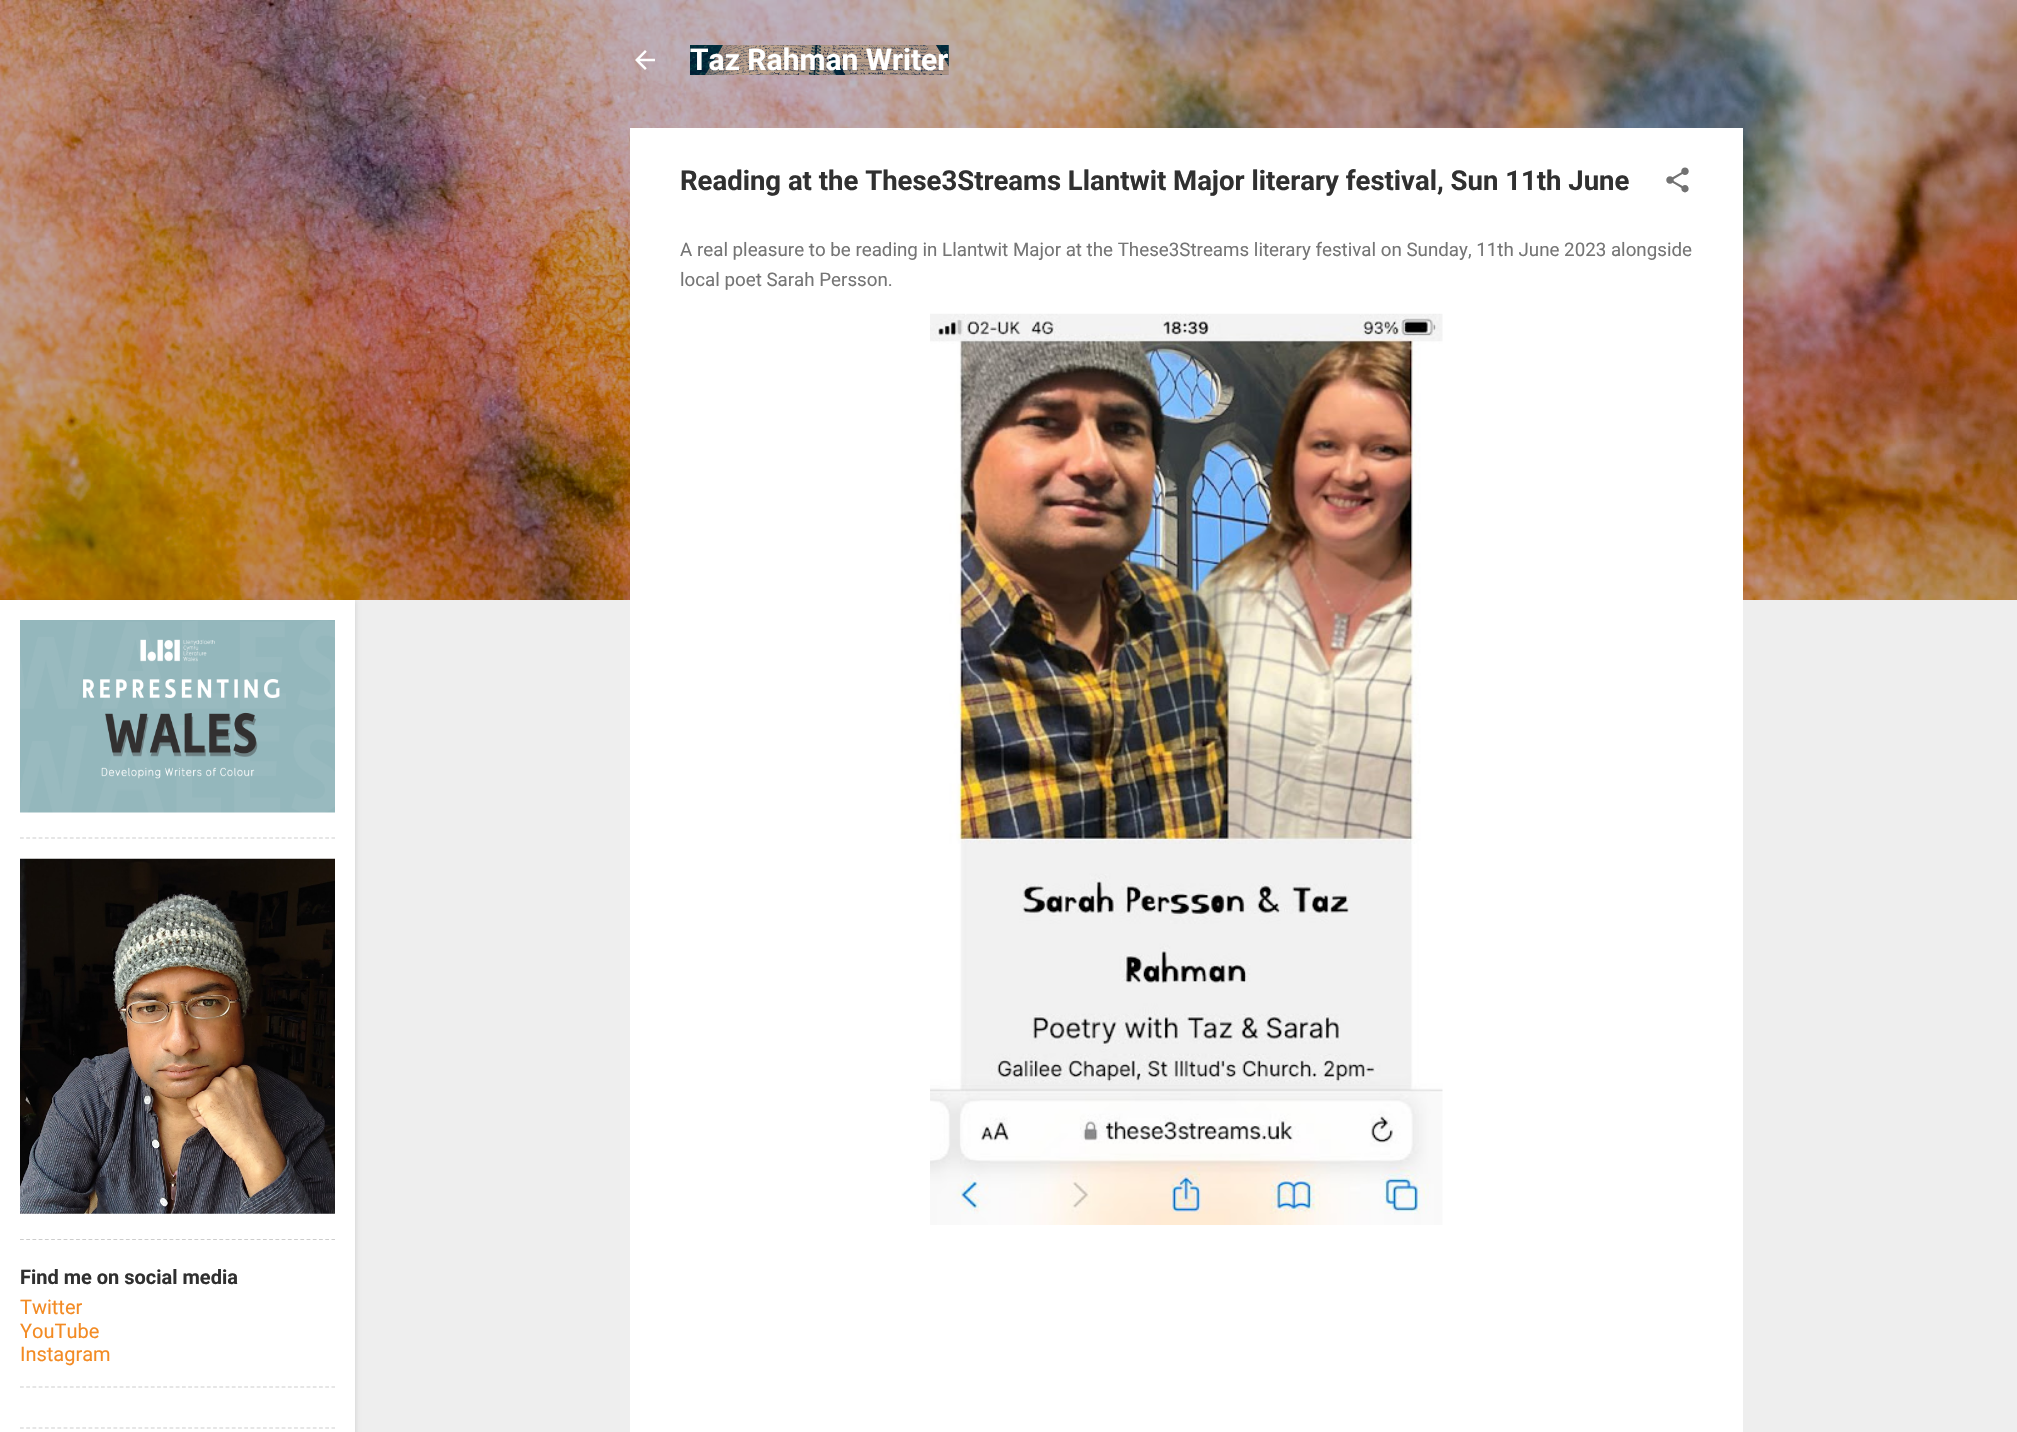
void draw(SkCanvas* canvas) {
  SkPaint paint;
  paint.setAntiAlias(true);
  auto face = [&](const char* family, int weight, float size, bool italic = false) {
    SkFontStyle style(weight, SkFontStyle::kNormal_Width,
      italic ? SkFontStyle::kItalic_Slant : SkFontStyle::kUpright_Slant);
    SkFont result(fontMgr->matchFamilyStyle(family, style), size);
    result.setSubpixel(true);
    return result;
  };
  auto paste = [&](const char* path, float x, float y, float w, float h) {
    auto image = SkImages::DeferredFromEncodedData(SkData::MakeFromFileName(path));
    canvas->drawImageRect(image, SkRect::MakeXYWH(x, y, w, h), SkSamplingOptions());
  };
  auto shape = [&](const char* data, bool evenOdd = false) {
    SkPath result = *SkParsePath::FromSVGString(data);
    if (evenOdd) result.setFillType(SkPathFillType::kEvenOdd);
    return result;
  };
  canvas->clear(0xffeeeeee);
  paste("img/1.png", 0, 0, 2017, 600);
  paste("img/2.png", 635, 50, 20, 20);
  paste("img/3.png", 690, 45, 259, 30);
  paint.setColor(0xffffffff);
  canvas->drawRect(SkRect::MakeXYWH(630, 128, 1113, 1304), paint);
  paste("img/4.png", 1666, 167, 23, 26);
  paste("img/5.png", 930, 313, 513, 912);
  paint.setColor(0x1a000000);
  paint.setMaskFilter(SkMaskFilter::MakeBlur(kNormal_SkBlurStyle, 2));
  canvas->drawRect(SkRect::MakeXYWH(1, 601, 355, 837), paint);
  paint.setMaskFilter(nullptr);
  paint.setColor(0xffffffff);
  canvas->drawRect(SkRect::MakeXYWH(0, 600, 355, 832), paint);
  paste("img/6.png", 20, 620, 315, 193);
  paint.setStroke(true);
  paint.setStrokeWidth(1.2f);
  paint.setColor(0xffcdcdcd);
  paint.setPathEffect(SkDashPathEffect::Make({{3.75f, 2.48f}}, 0));
  canvas->drawPath(shape("M20 838H335"), paint);
  paint.setPathEffect(nullptr);
  paste("img/7.png", 20, 858, 315, 356);
  paint.setPathEffect(SkDashPathEffect::Make({{3.75f, 2.48f}}, 0));
  canvas->drawPath(shape("M20 1239.5H335"), paint);
  paint.setPathEffect(nullptr);
  paint.setPathEffect(SkDashPathEffect::Make({{3.75f, 2.48f}}, 0));
  canvas->drawPath(shape("M20 1387H335"), paint);
  paint.setPathEffect(nullptr);
  paint.setPathEffect(SkDashPathEffect::Make({{3.75f, 2.48f}}, 0));
  canvas->drawPath(shape("M20 1428H335"), paint);
  paint.setPathEffect(nullptr);
  auto f0 = face("Roboto", 700, 30);
  paint.setStroke(false);
  paint.setColor(0xffffffff);
  canvas->drawString("Taz Rahman Writer", 690, 70, f0, paint);
  auto f1 = face("Roboto", 700, 27.5f);
  paint.setColor(0xff303030);
  canvas->drawString("Reading at the These3Streams Llantwit Major literary festival, Sun 11th June", 680, 190, f1, paint);
  auto f2 = face("Roboto", 400, 18.75f);
  paint.setColor(0xff757575);
  canvas->drawString("A real pleasure to be reading in Llantwit Major at the These3Streams literary festival on Sunday, 11th June 2023 alongside", 680, 256, f2, paint);
  canvas->drawString("local poet Sarah Persson.", 680, 286, f2, paint);
  auto f3 = face("Roboto", 700, 20);
  paint.setColor(0xff303030);
  canvas->drawString("Find me on social media", 20, 1284, f3, paint);
  auto f4 = face("Roboto", 400, 20);
  paint.setColor(0xfff38b24);
  {
    const struct { const char* s; float x, y; } items[] = {
      {"Twitter", 20, 1314},
      {"YouTube", 20, 1338},
      {"Instagram", 20, 1361},
    };
    for (auto [s, x, y] : items) {
      canvas->drawString(s, x, y, f4, paint);
    }
  }
}
